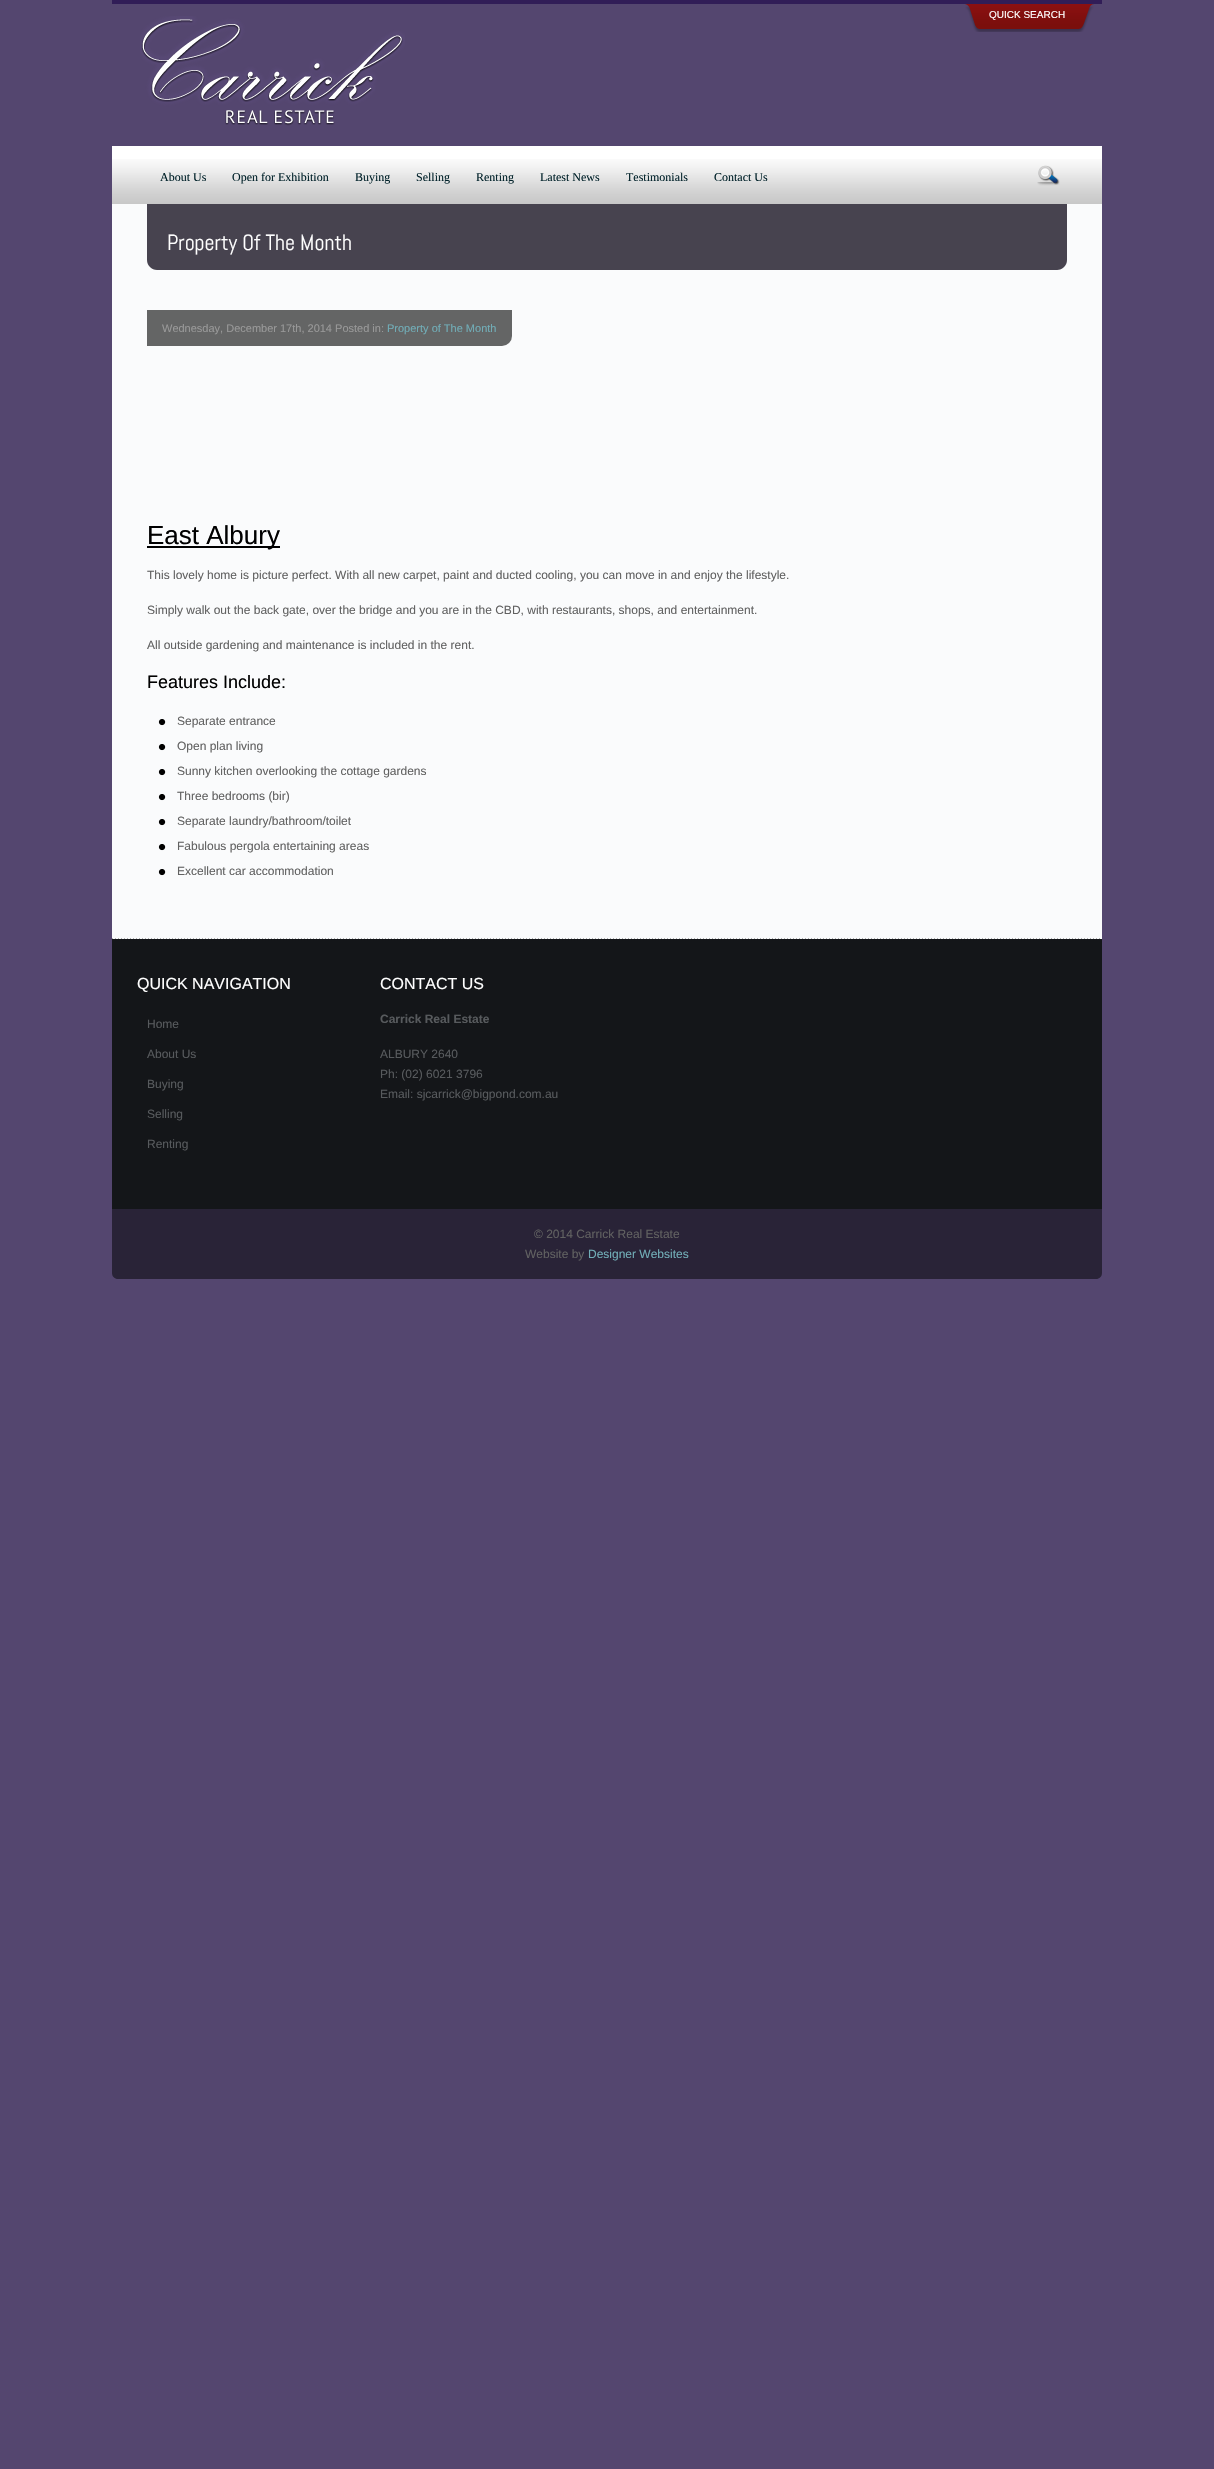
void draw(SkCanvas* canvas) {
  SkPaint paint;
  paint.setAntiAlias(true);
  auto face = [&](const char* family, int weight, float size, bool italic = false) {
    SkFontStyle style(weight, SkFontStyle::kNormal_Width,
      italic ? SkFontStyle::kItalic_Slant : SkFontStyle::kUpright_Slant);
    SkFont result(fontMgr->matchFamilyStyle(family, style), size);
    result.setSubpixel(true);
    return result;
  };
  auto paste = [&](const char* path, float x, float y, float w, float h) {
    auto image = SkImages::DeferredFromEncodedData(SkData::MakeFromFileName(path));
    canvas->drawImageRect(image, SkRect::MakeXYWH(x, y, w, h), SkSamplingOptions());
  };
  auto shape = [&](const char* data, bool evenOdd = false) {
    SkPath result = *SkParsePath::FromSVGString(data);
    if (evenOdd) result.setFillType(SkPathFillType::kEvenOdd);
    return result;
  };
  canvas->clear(0xff54466f);
  paint.setColor(0xff311d57);
  canvas->drawRect(SkRect::MakeXYWH(112, 0, 990, 4), paint);
  paste("img/1.png", 140, 16, 265, 110);
  paste("img/2.png", 965, 4, 129, 28);
  paint.setColor(0xffffffff);
  canvas->drawRect(SkRect::MakeXYWH(112, 146, 990, 58), paint);
  paste("img/3.png", 112, 159, 990, 45);
  paste("img/4.png", 1037, 165, 23, 21);
  paint.setColor(0xfffafbfc);
  canvas->drawRect(SkRect::MakeXYWH(112, 204, 990, 735), paint);
  paint.setColor(0xff47434f);
  canvas->drawPath(shape("M147 204H1067V260C1067 265.5 1062.5 270 1057 270H157C151.5 270 147 265.5 147 260Z"), paint);
  paste("img/5.png", 112, 938, 988, 1);
  paste("img/6.png", 147, 310, 365, 36);
  paint.setColor(0xff000000);
  canvas->drawRect(SkRect::MakeXYWH(147, 546, 133, 2), paint);
  paste("img/7.png", 158, 719, 8, 7);
  paste("img/7.png", 158, 744, 8, 7);
  paste("img/7.png", 158, 769, 8, 7);
  paste("img/7.png", 158, 794, 8, 7);
  paste("img/7.png", 158, 819, 8, 7);
  paste("img/7.png", 158, 844, 8, 7);
  paste("img/7.png", 158, 869, 8, 7);
  paint.setColor(0xff141619);
  canvas->drawRect(SkRect::MakeXYWH(112, 939, 990, 270), paint);
  paint.setColor(0xff292337);
  canvas->drawPath(shape("M112 1209H1102V1273C1102 1276.5 1099.5 1279 1096 1279H118C114.5 1279 112 1276.5 112 1273Z"), paint);
  auto f0 = face("Liberation Sans", 400, 10);
  paint.setColor(0xffffffff);
  canvas->drawString("QUICK SEARCH", 989, 18, f0, paint);
  auto f1 = face("Liberation Serif", 400, 12);
  paint.setColor(0xff002129);
  {
    const struct { const char* s; float x, y; } items[] = {
      {"About Us", 160, 181},
      {"Open for Exhibition", 232, 181},
      {"Buying", 355, 181},
      {"Selling", 416, 181},
      {"Renting", 476, 181},
      {"Latest News", 540, 181},
      {"Testimonials", 626, 181},
      {"Contact Us", 714, 181},
    };
    for (auto [s, x, y] : items) {
      canvas->drawString(s, x, y, f1, paint);
    }
  }
  auto f2 = face("Abel", 400, 22);
  paint.setColor(0xffffffff);
  canvas->drawString("Property Of The Month", 167, 250, f2, paint);
  auto f3 = face("Liberation Sans", 400, 11);
  paint.setColor(0xff999999);
  canvas->drawString("Wednesday, December 17th, 2014 Posted in:", 162, 332, f3, paint);
  paint.setColor(0xff71adb7);
  canvas->drawString("Property of The Month", 387, 332, f3, paint);
  auto f4 = face("Liberation Sans", 400, 26);
  paint.setColor(0xff000000);
  canvas->drawString("East Albury", 147, 544, f4, paint);
  auto f5 = face("Liberation Sans", 400, 12);
  paint.setColor(0xff616161);
  {
    const struct { const char* s; float x, y; } items[] = {
      {"This lovely home is picture perfect. With all new carpet, paint and ducted cooling, you can move in and enjoy the lifestyle.", 147, 579},
      {"Simply walk out the back gate, over the bridge and you are in the CBD, with restaurants, shops, and entertainment.", 147, 614},
      {"All outside gardening and maintenance is included in the rent.", 147, 649},
    };
    for (auto [s, x, y] : items) {
      canvas->drawString(s, x, y, f5, paint);
    }
  }
  auto f6 = face("Liberation Sans", 400, 18);
  paint.setColor(0xff000000);
  canvas->drawString("Features Include:", 147, 688, f6, paint);
  paint.setColor(0xff616161);
  {
    const struct { const char* s; float x, y; } items[] = {
      {"Separate entrance", 177, 725},
      {"Open plan living", 177, 750},
      {"Sunny kitchen overlooking the cottage gardens", 177, 775},
      {"Three bedrooms (bir)", 177, 800},
      {"Separate laundry/bathroom/toilet", 177, 825},
      {"Fabulous pergola entertaining areas", 177, 850},
      {"Excellent car accommodation", 177, 875},
    };
    for (auto [s, x, y] : items) {
      canvas->drawString(s, x, y, f5, paint);
    }
  }
  auto f7 = face("Liberation Sans", 400, 16);
  paint.setColor(0xffffffff);
  canvas->drawString("QUICK NAVIGATION", 137, 989, f7, paint);
  paint.setColor(0xff575a5d);
  {
    const struct { const char* s; float x, y; } items[] = {
      {"Home", 147, 1028},
      {"About Us", 147, 1058},
      {"Buying", 147, 1088},
      {"Selling", 147, 1118},
      {"Renting", 147, 1148},
    };
    for (auto [s, x, y] : items) {
      canvas->drawString(s, x, y, f5, paint);
    }
  }
  paint.setColor(0xffffffff);
  canvas->drawString("CONTACT US", 380, 989, f7, paint);
  auto f8 = face("Liberation Sans", 700, 12);
  paint.setColor(0xff575a5d);
  canvas->drawString("Carrick Real Estate", 380, 1023, f8, paint);
  {
    const struct { const char* s; float x, y; } items[] = {
      {"ALBURY 2640", 380, 1058},
      {"Ph: (02) 6021 3796", 380, 1078},
      {"Email: sjcarrick@bigpond.com.au", 380, 1098},
    };
    for (auto [s, x, y] : items) {
      canvas->drawString(s, x, y, f5, paint);
    }
  }
  paint.setColor(0xff616161);
  canvas->drawString("© 2014 Carrick Real Estate", 534, 1238, f5, paint);
  canvas->drawString("Website by", 525, 1258, f5, paint);
  paint.setColor(0xff71adb7);
  canvas->drawString("Designer Websites", 588, 1258, f5, paint);
}
